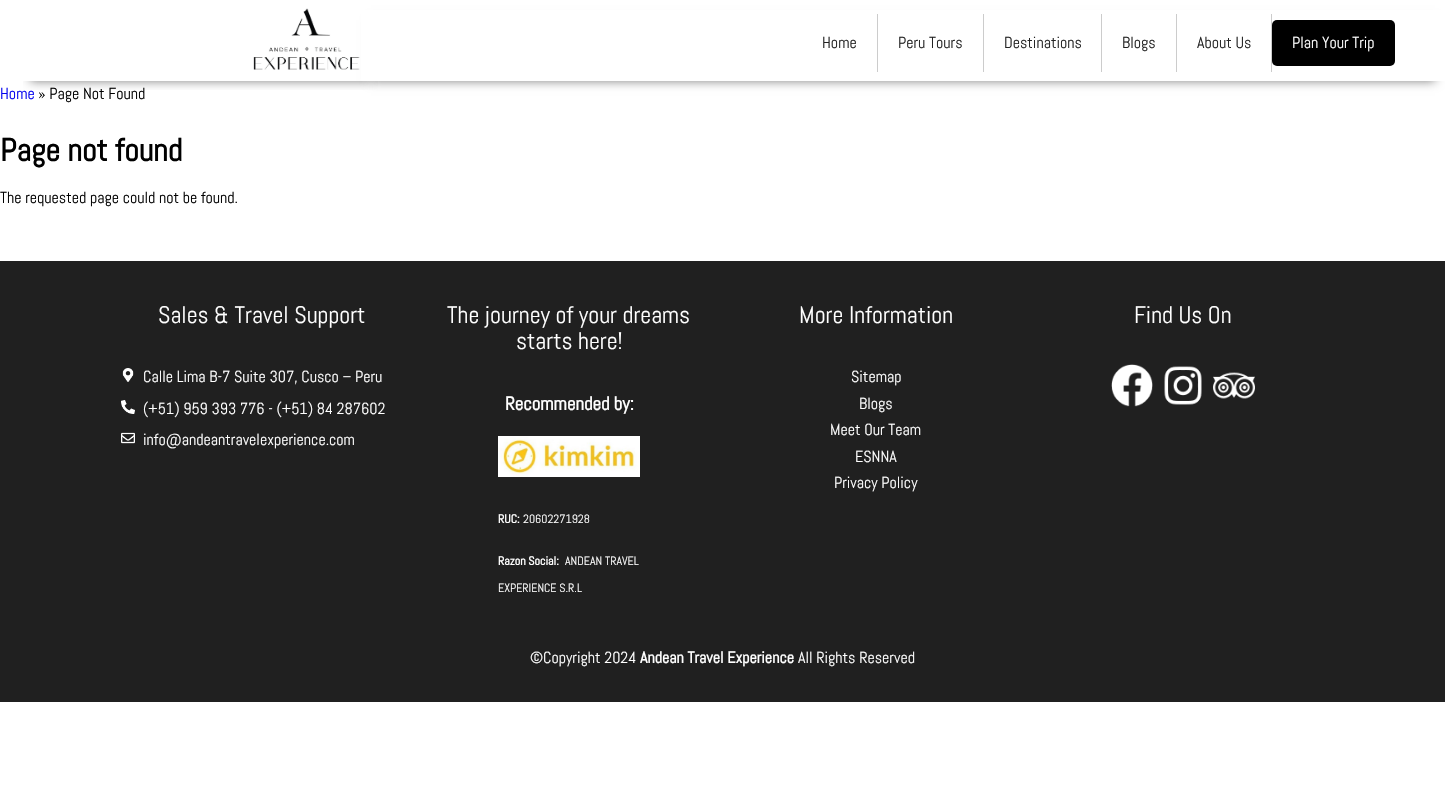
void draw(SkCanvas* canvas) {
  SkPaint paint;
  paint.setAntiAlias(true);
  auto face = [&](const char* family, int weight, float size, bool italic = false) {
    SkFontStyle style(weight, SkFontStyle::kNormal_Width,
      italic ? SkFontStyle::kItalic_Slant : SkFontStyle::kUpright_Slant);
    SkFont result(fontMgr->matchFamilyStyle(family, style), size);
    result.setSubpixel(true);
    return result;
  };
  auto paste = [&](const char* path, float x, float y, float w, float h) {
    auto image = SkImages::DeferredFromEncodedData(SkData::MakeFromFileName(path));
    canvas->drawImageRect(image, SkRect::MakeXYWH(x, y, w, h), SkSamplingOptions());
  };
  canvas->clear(0xffffffff);
  canvas->save();
  canvas->clipRect(SkRect::MakeXYWH(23, 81, 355, 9));
  paint.setColor(0x80000000);
  paint.setMaskFilter(SkMaskFilter::MakeBlur(kNormal_SkBlurStyle, 5));
  canvas->drawRect(SkRect::MakeXYWH(30, 20, 341, 61), paint);
  paint.setMaskFilter(nullptr);
  canvas->restore();
  paste("img/1.png", 253, 8, 107, 62);
  paint.setMaskFilter(SkMaskFilter::MakeBlur(kNormal_SkBlurStyle, 5));
  canvas->drawRect(SkRect::MakeXYWH(371, 20, 1064, 61), paint);
  paint.setMaskFilter(nullptr);
  {
    const struct { float x, y, w, h; SkColor color; } items[] = {
      {361, 10, 1084, 71, 0xffffffff},
      {877, 14, 1, 58, 0xffcccccc},
      {983, 14, 1, 58, 0xffcccccc},
      {1101, 14, 1, 58, 0xffcccccc},
      {1176, 14, 1, 58, 0xffcccccc},
      {1271, 14, 1, 58, 0xffcccccc},
    };
    for (auto [x, y, w, h, color] : items) {
      paint.setColor(color);
      canvas->drawRect(SkRect::MakeXYWH(x, y, w, h), paint);
    }
  }
  paint.setColor(0xff000000);
  canvas->drawRoundRect(SkRect::MakeXYWH(1272, 20, 123, 46), 5, 5, paint);
  paint.setColor(0xff202020);
  canvas->drawRect(SkRect::MakeXYWH(0, 261, 1445, 441), paint);
  paste("img/2.png", 122, 368, 12, 14);
  paste("img/3.png", 121, 400, 14, 14);
  paste("img/4.png", 121, 432, 14, 12);
  paste("img/5.png", 498, 436, 142, 41);
  paste("img/6.png", 1111, 364, 42, 43);
  paste("img/7.png", 1164, 366, 38, 39);
  paste("img/8.png", 1213, 372, 42, 27);
  auto f0 = face("Abel", 400, 16);
  paint.setColor(0xff222222);
  {
    const struct { const char* s; float x, y; } items[] = {
      {"Home", 822, 48},
      {"Peru Tours", 898, 48},
      {"Destinations", 1004, 48},
      {"Blogs", 1122, 48},
      {"About Us", 1197, 48},
    };
    for (auto [s, x, y] : items) {
      canvas->drawString(s, x, y, f0, paint);
    }
  }
  paint.setColor(0xffffffff);
  canvas->drawString("Plan Your Trip", 1292, 48, f0, paint);
  paint.setColor(0xff0000ee);
  canvas->drawString("Home", 0, 99, f0, paint);
  paint.setColor(0xff000000);
  canvas->drawString("» Page Not Found", 38, 99, f0, paint);
  auto f1 = face("Abel", 700, 32);
  canvas->drawString("Page not found", 0, 161, f1, paint);
  canvas->drawString("The requested page could not be found.", 0, 203, f0, paint);
  auto f2 = face("Abel", 400, 24);
  paint.setColor(0xffffffff);
  canvas->drawString("Sales & Travel Support", 158, 323, f2, paint);
  {
    const struct { const char* s; float x, y; } items[] = {
      {"Calle Lima B-7 Suite 307, Cusco – Peru", 143, 382},
      {"(+51) 959 393 776 - (+51) 84 287602", 143, 414},
      {"info@andeantravelexperience.com", 143, 445},
    };
    for (auto [s, x, y] : items) {
      canvas->drawString(s, x, y, f0, paint);
    }
  }
  canvas->drawString("The journey of your dreams", 447, 323, f2, paint);
  canvas->drawString("starts here!", 516, 349, f2, paint);
  auto f3 = face("Abel", 700, 18.75f);
  canvas->drawString("Recommended by:", 505, 410, f3, paint);
  auto f4 = face("Abel", 700, 12);
  canvas->drawString("RUC:", 498, 523, f4, paint);
  auto f5 = face("Abel", 400, 12);
  canvas->drawString("20602271928", 523, 523, f5, paint);
  canvas->drawString("Razon Social:", 498, 565, f4, paint);
  canvas->drawString("ANDEAN TRAVEL", 565, 565, f5, paint);
  canvas->drawString("EXPERIENCE S.R.L", 498, 592, f5, paint);
  canvas->drawString("More Information", 799, 323, f2, paint);
  {
    const struct { const char* s; float x, y; } items[] = {
      {"Sitemap", 851, 382},
      {"Blogs", 859, 409},
      {"Meet Our Team", 830, 435},
      {"ESNNA", 855, 462},
      {"Privacy Policy", 834, 488},
    };
    for (auto [s, x, y] : items) {
      canvas->drawString(s, x, y, f0, paint);
    }
  }
  canvas->drawString("Find Us On", 1134, 323, f2, paint);
  canvas->drawString("©Copyright 2024", 530, 663, f0, paint);
  auto f6 = face("Abel", 700, 16);
  canvas->drawString("Andean Travel Experience", 640, 663, f6, paint);
  canvas->drawString("All Rights Reserved", 798, 663, f0, paint);
}
